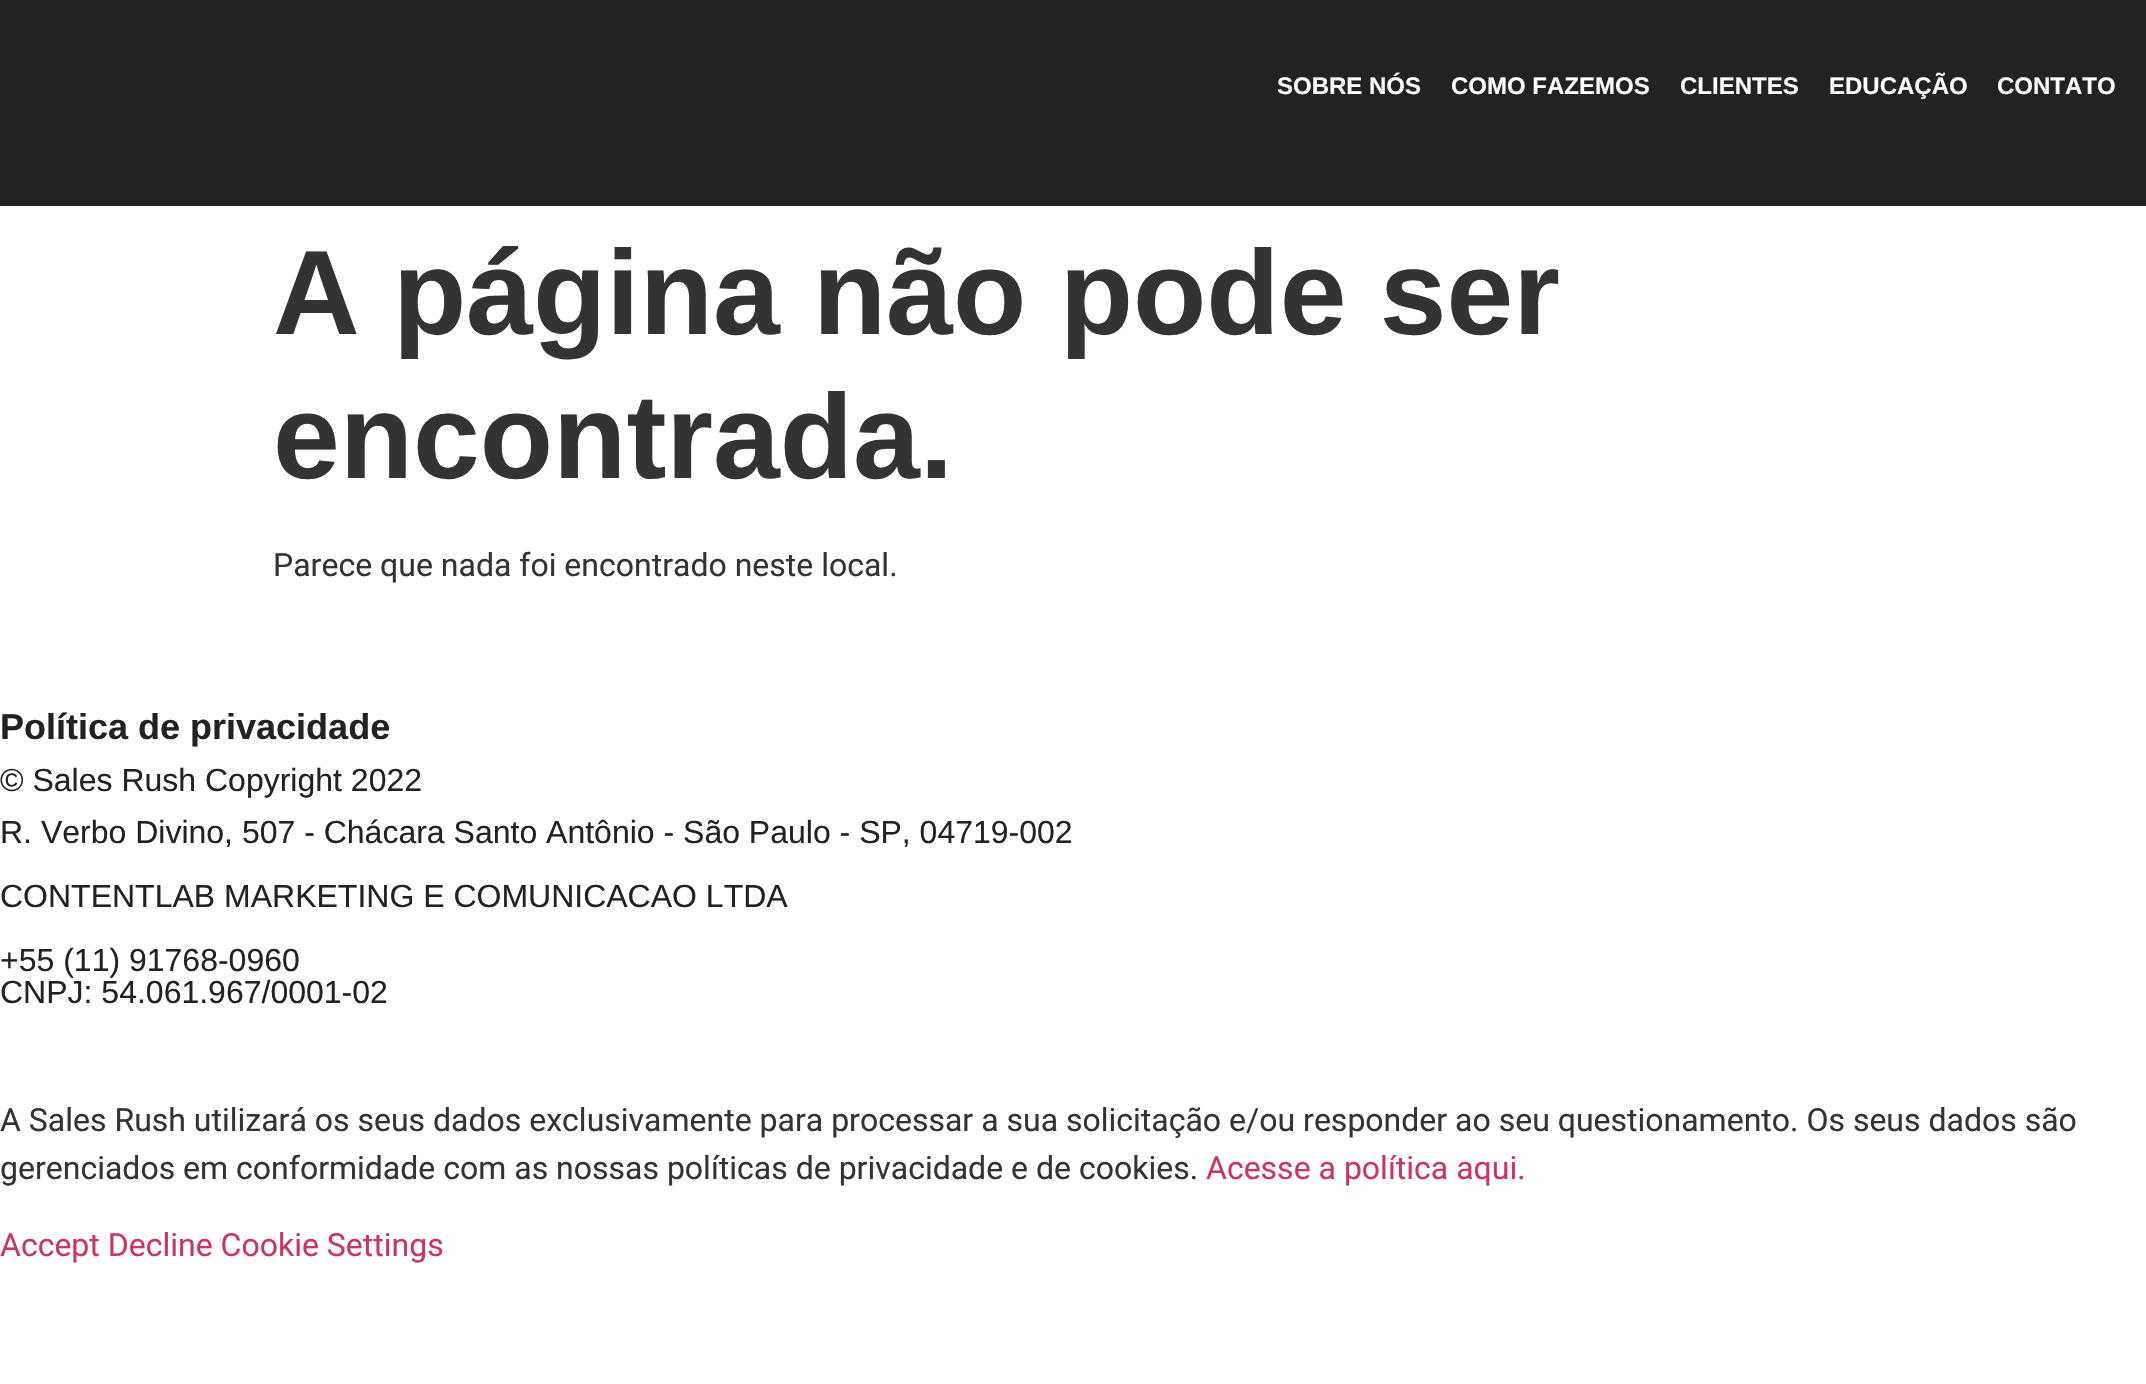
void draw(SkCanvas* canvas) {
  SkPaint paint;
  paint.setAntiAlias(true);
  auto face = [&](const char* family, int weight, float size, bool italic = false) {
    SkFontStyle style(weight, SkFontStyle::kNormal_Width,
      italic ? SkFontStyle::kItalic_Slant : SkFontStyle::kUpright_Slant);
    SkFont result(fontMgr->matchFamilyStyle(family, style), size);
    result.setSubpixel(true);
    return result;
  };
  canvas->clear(0xffffffff);
  paint.setColor(0xff222222);
  canvas->drawRect(SkRect::MakeXYWH(0, 0, 2146, 206), paint);
  auto f0 = face("Liberation Sans", 700, 24);
  paint.setColor(0xffffffff);
  {
    const struct { const char* s; float x, y; } items[] = {
      {"SOBRE NÓS", 1277, 94},
      {"COMO FAZEMOS", 1451, 94},
      {"CLIENTES", 1680, 94},
      {"EDUCAÇÃO", 1829, 94},
      {"CONTATO", 1997, 94},
    };
    for (auto [s, x, y] : items) {
      canvas->drawString(s, x, y, f0, paint);
    }
  }
  auto f1 = face("Liberation Sans", 700, 120);
  paint.setColor(0xff333333);
  canvas->drawString("A página não pode ser", 273, 334, f1, paint);
  canvas->drawString("encontrada.", 273, 478, f1, paint);
  auto f2 = face("Roboto", 400, 32);
  canvas->drawString("Parece que nada foi encontrado neste local.", 273, 576, f2, paint);
  auto f3 = face("Liberation Sans", 700, 36);
  paint.setColor(0xff222222);
  canvas->drawString("Política de privacidade", 0, 739, f3, paint);
  auto f4 = face("Liberation Sans", 400, 32);
  {
    const struct { const char* s; float x, y; } items[] = {
      {"© Sales Rush Copyright 2022", 0, 791},
      {"R. Verbo Divino, 507 - Chácara Santo Antônio - São Paulo - SP, 04719-002", 0, 843},
      {"CONTENTLAB MARKETING E COMUNICACAO LTDA", 0, 907},
      {"+55 (11) 91768-0960", 0, 971},
      {"CNPJ: 54.061.967/0001-02", 0, 1003},
    };
    for (auto [s, x, y] : items) {
      canvas->drawString(s, x, y, f4, paint);
    }
  }
  paint.setColor(0xff333333);
  canvas->drawString("A Sales Rush utilizará os seus dados exclusivamente para processar a sua solicitação e/ou responder ao seu questionamento. Os seus dados são", 0, 1131, f2, paint);
  canvas->drawString("gerenciados em conformidade com as nossas políticas de privacidade e de cookies.", 0, 1179, f2, paint);
  paint.setColor(0xffcc3366);
  canvas->drawString("Acesse a política aqui.", 1206, 1179, f2, paint);
  canvas->drawString("Accept Decline Cookie Settings", 0, 1256, f2, paint);
}
